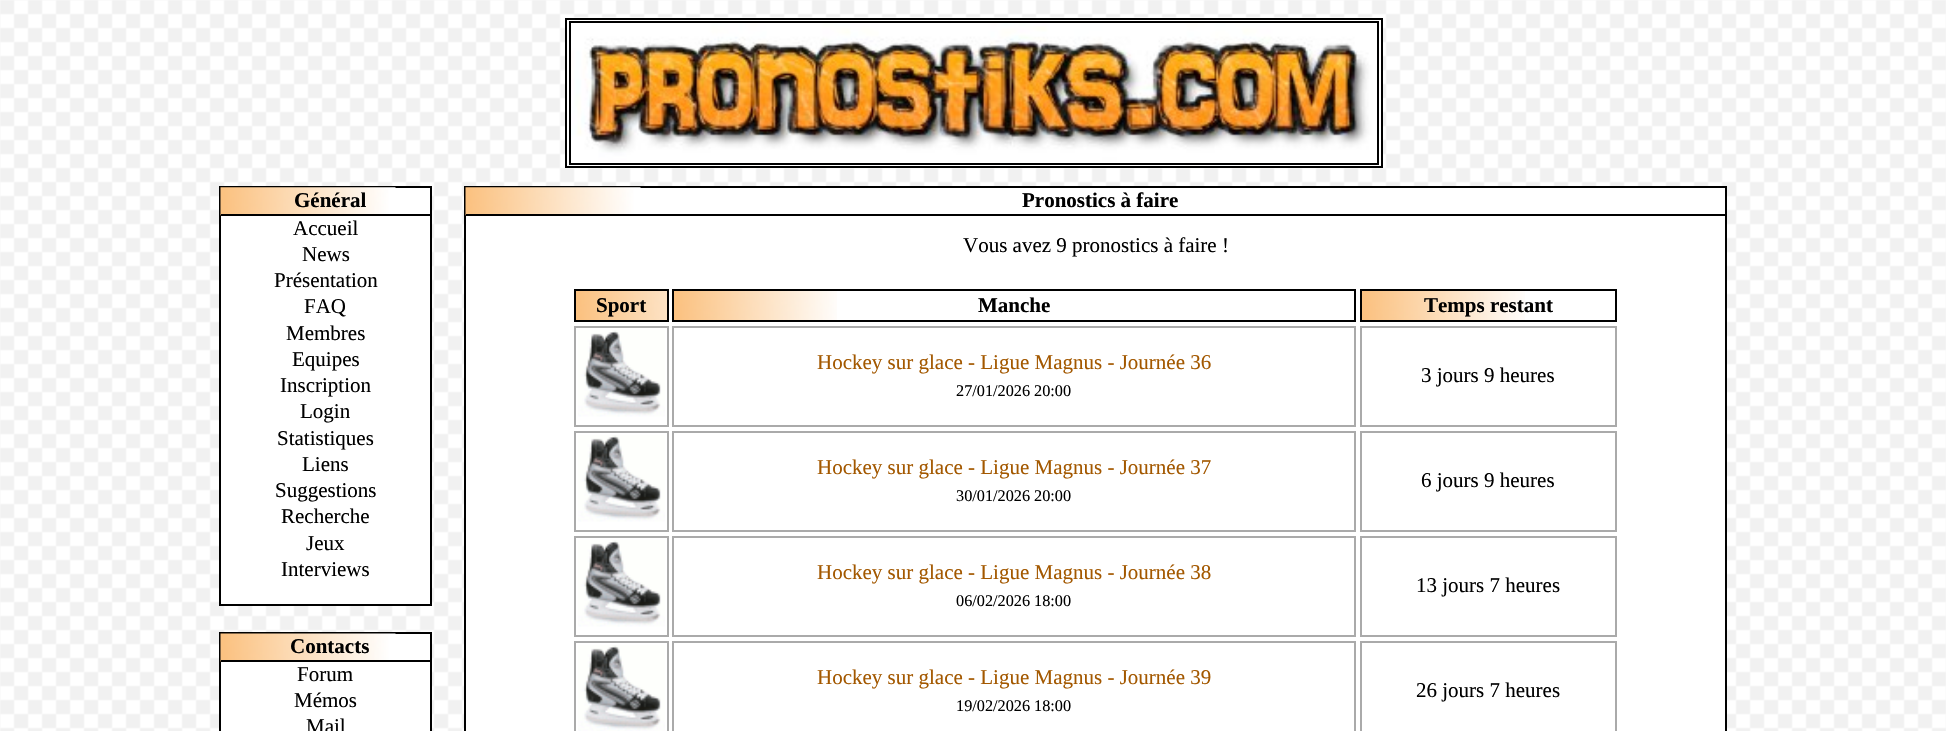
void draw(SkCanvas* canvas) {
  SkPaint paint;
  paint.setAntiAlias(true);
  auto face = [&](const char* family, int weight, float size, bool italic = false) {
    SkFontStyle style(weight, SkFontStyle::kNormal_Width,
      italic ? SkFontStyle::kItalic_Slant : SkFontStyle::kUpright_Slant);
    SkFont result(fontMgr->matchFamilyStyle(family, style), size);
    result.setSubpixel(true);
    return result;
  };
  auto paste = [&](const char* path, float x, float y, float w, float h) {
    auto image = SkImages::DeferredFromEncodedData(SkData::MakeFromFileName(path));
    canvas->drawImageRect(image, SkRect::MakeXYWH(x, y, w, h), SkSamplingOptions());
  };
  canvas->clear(0xffffffff);
  paste("img/1.png", 0, 0, 1946, 731);
  paste("img/2.png", 565, 17, 818, 149);
  paint.setStroke(true);
  paint.setStrokeWidth(2);
  paint.setColor(0xff000000);
  canvas->drawRect(SkRect::MakeXYWH(566, 19, 816, 148), paint);
  canvas->drawRect(SkRect::MakeXYWH(570, 22, 808, 142), paint);
  paint.setStroke(false);
  paint.setColor(0xffffffff);
  canvas->drawRect(SkRect::MakeXYWH(220, 187, 211, 418), paint);
  paint.setStroke(true);
  paint.setColor(0xff000000);
  canvas->drawRect(SkRect::MakeXYWH(220, 187, 211, 418), paint);
  paste("img/3.png", 220, 187, 176, 29);
  paint.setStroke(false);
  canvas->drawRect(SkRect::MakeXYWH(221, 214, 210, 2), paint);
  paint.setColor(0xffffffff);
  canvas->drawRect(SkRect::MakeXYWH(220, 633, 211, 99), paint);
  paint.setStroke(true);
  paint.setColor(0xff000000);
  canvas->drawRect(SkRect::MakeXYWH(220, 633, 211, 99), paint);
  paste("img/4.png", 220, 633, 176, 29);
  paint.setStroke(false);
  canvas->drawRect(SkRect::MakeXYWH(221, 660, 210, 2), paint);
  paint.setColor(0xffffffff);
  canvas->drawRect(SkRect::MakeXYWH(465, 187, 1261, 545), paint);
  paint.setStroke(true);
  paint.setColor(0xff000000);
  canvas->drawRect(SkRect::MakeXYWH(465, 187, 1261, 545), paint);
  paste("img/5.png", 465, 187, 176, 29);
  paint.setStroke(false);
  canvas->drawRect(SkRect::MakeXYWH(466, 214, 1260, 2), paint);
  paste("img/6.png", 576, 291, 91, 29);
  paint.setStroke(true);
  canvas->drawRect(SkRect::MakeXYWH(575, 290, 93, 31), paint);
  paste("img/7.png", 674, 291, 163, 29);
  canvas->drawRect(SkRect::MakeXYWH(673, 290, 682, 31), paint);
  paste("img/8.png", 1362, 291, 163, 29);
  canvas->drawRect(SkRect::MakeXYWH(1361, 290, 255, 31), paint);
  paint.setColor(0xffaaaaaa);
  canvas->drawRect(SkRect::MakeXYWH(575, 327, 93, 99), paint);
  paste("img/9.png", 578, 330, 87, 87);
  canvas->drawRect(SkRect::MakeXYWH(673, 327, 682, 99), paint);
  canvas->drawRect(SkRect::MakeXYWH(1361, 327, 255, 99), paint);
  canvas->drawRect(SkRect::MakeXYWH(575, 432, 93, 99), paint);
  paste("img/9.png", 578, 435, 87, 87);
  canvas->drawRect(SkRect::MakeXYWH(673, 432, 682, 99), paint);
  canvas->drawRect(SkRect::MakeXYWH(1361, 432, 255, 99), paint);
  canvas->drawRect(SkRect::MakeXYWH(575, 537, 93, 99), paint);
  paste("img/9.png", 578, 540, 87, 87);
  canvas->drawRect(SkRect::MakeXYWH(673, 537, 682, 99), paint);
  canvas->drawRect(SkRect::MakeXYWH(1361, 537, 255, 99), paint);
  canvas->drawRect(SkRect::MakeXYWH(575, 642, 93, 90), paint);
  paste("img/10.png", 578, 645, 87, 86);
  canvas->drawRect(SkRect::MakeXYWH(673, 642, 682, 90), paint);
  canvas->drawRect(SkRect::MakeXYWH(1361, 642, 255, 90), paint);
  auto f0 = face("Liberation Serif", 700, 21);
  paint.setStroke(false);
  paint.setColor(0xff000000);
  canvas->drawString("Général", 294, 207, f0, paint);
  auto f1 = face("Liberation Serif", 400, 21);
  {
    const struct { const char* s; float x, y; } items[] = {
      {"Accueil", 293, 235},
      {"News", 302, 261},
      {"Présentation", 274, 287},
      {"FAQ", 304, 313},
      {"Membres", 286, 340},
      {"Equipes", 292, 366},
      {"Inscription", 280, 392},
      {"Login", 300, 418},
      {"Statistiques", 277, 445},
      {"Liens", 302, 471},
      {"Suggestions", 275, 497},
      {"Recherche", 281, 523},
      {"Jeux", 306, 550},
      {"Interviews", 281, 576},
    };
    for (auto [s, x, y] : items) {
      canvas->drawString(s, x, y, f1, paint);
    }
  }
  canvas->drawString("Contacts", 290, 653, f0, paint);
  {
    const struct { const char* s; float x, y; } items[] = {
      {"Forum", 297, 681},
      {"Mémos", 294, 707},
      {"Mail", 306, 733},
    };
    for (auto [s, x, y] : items) {
      canvas->drawString(s, x, y, f1, paint);
    }
  }
  canvas->drawString("Pronostics à faire", 1022, 207, f0, paint);
  canvas->drawString("Vous avez 9 pronostics à faire !", 963, 252, f1, paint);
  {
    const struct { const char* s; float x, y; } items[] = {
      {"Sport", 596, 312},
      {"Manche", 978, 312},
      {"Temps restant", 1424, 312},
    };
    for (auto [s, x, y] : items) {
      canvas->drawString(s, x, y, f0, paint);
    }
  }
  paint.setColor(0xffa35800);
  canvas->drawString("Hockey sur glace - Ligue Magnus - Journée 36", 817, 369, f1, paint);
  auto f2 = face("Liberation Serif", 400, 16.25f);
  paint.setColor(0xff000000);
  canvas->drawString("27/01/2026 20:00", 956, 396, f2, paint);
  canvas->drawString("3 jours 9 heures", 1421, 382, f1, paint);
  paint.setColor(0xffa35800);
  canvas->drawString("Hockey sur glace - Ligue Magnus - Journée 37", 817, 474, f1, paint);
  paint.setColor(0xff000000);
  canvas->drawString("30/01/2026 20:00", 956, 501, f2, paint);
  canvas->drawString("6 jours 9 heures", 1421, 487, f1, paint);
  paint.setColor(0xffa35800);
  canvas->drawString("Hockey sur glace - Ligue Magnus - Journée 38", 817, 579, f1, paint);
  paint.setColor(0xff000000);
  canvas->drawString("06/02/2026 18:00", 956, 606, f2, paint);
  canvas->drawString("13 jours 7 heures", 1416, 592, f1, paint);
  paint.setColor(0xffa35800);
  canvas->drawString("Hockey sur glace - Ligue Magnus - Journée 39", 817, 684, f1, paint);
  paint.setColor(0xff000000);
  canvas->drawString("19/02/2026 18:00", 956, 711, f2, paint);
  canvas->drawString("26 jours 7 heures", 1416, 697, f1, paint);
}
